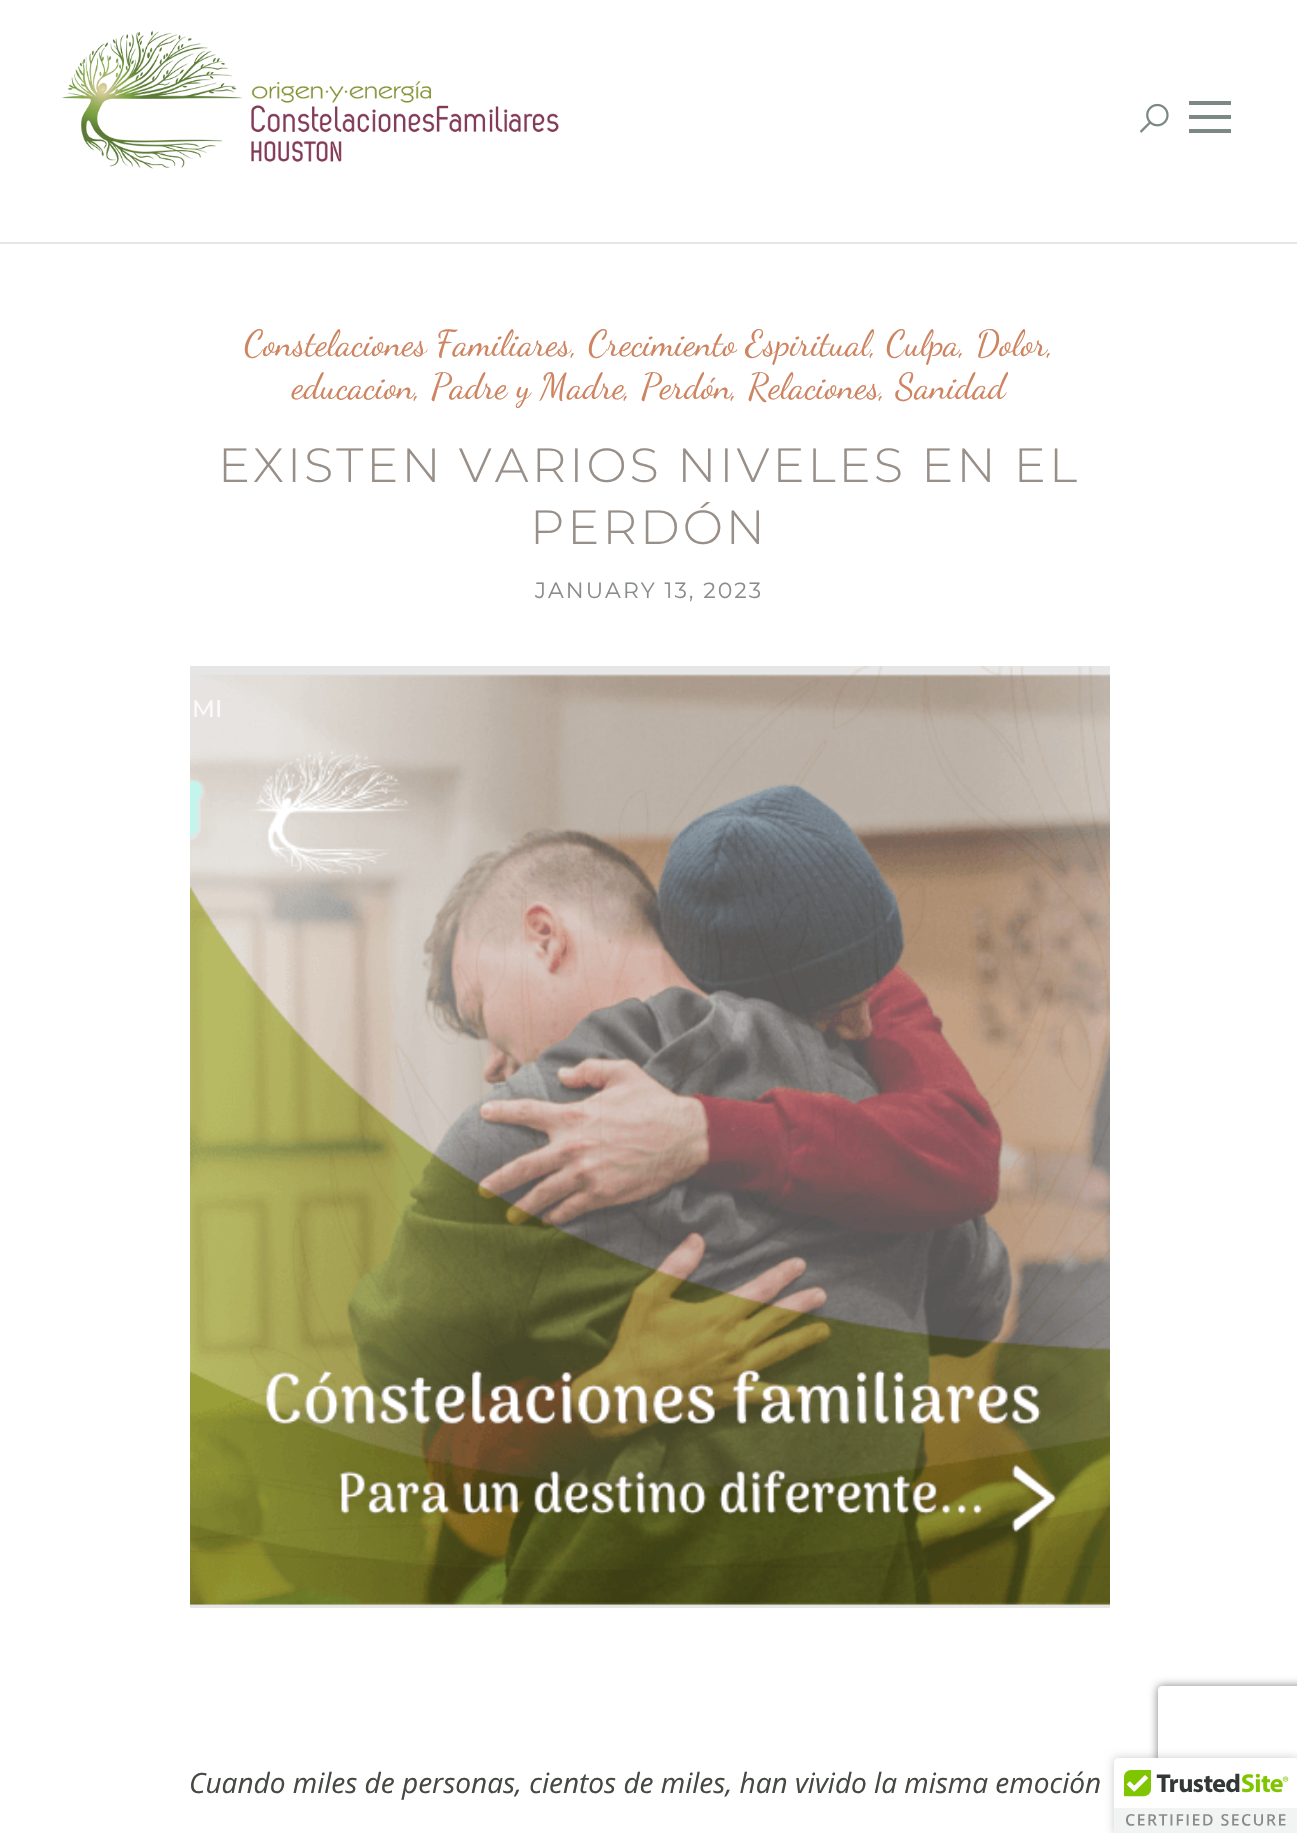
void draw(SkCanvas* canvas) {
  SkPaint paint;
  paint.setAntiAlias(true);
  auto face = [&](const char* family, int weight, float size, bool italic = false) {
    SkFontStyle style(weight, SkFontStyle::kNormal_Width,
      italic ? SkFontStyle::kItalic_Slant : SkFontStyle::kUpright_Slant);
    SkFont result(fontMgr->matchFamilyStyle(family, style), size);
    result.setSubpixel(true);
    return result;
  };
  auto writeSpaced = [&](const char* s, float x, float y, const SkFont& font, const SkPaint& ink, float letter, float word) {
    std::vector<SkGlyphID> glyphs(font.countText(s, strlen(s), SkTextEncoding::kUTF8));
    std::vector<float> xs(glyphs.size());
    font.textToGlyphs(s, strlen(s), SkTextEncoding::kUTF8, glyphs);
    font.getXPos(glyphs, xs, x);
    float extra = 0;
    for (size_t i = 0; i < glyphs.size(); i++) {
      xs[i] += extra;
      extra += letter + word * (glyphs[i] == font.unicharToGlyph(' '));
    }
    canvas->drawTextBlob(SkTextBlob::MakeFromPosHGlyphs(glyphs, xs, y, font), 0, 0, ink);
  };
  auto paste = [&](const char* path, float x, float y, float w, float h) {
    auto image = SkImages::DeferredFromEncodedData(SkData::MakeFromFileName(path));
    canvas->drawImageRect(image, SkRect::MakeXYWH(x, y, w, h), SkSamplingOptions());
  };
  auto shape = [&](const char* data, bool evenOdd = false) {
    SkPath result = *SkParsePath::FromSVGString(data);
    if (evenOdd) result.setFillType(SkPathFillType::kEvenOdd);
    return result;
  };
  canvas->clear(0xffffffff);
  paste("img/1.png", 190, 666, 920, 942);
  paint.setColor(0xffe5e6e8);
  canvas->drawRect(SkRect::MakeXYWH(0, 242, 1297, 2), paint);
  paste("img/2.png", 61, 30, 498, 139);
  paste("img/3.png", 1139, 103, 30, 30);
  paint.setColor(0xff7b8982);
  canvas->drawPath(shape("M1189 101H1231V105H1189ZM1189 115H1231V119H1189ZM1189 129H1231V133H1189Z"), paint);
  canvas->save();
  canvas->clipPath(shape("M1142 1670H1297V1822H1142ZM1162 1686H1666C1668 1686 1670 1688 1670 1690V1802C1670 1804 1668 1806 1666 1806H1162C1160 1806 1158 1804 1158 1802V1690C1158 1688 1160 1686 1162 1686Z", true), true);
  paint.setColor(0xff808080);
  paint.setMaskFilter(SkMaskFilter::MakeBlur(kNormal_SkBlurStyle, 5));
  canvas->drawRoundRect(SkRect::MakeXYWH(1158, 1686, 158, 120), 4, 4, paint);
  paint.setMaskFilter(nullptr);
  canvas->restore();
  paint.setColor(0x33000000);
  paint.setMaskFilter(SkMaskFilter::MakeBlur(kNormal_SkBlurStyle, 5));
  canvas->drawRoundRect(SkRect::MakeXYWH(1114, 1758, 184, 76), 4, 4, paint);
  paint.setMaskFilter(nullptr);
  paint.setColor(0xffffffff);
  canvas->drawPath(shape("M1118 1758H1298V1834H1114V1762C1114 1760 1116 1758 1118 1758Z"), paint);
  paste("img/4.png", 1114, 1758, 183, 75);
  auto f0 = face("Dancing Script", 400, 36);
  paint.setColor(0xffce8460);
  {
    const struct { const char* s; float x, y; } items[] = {
      {",", 571, 355},
      {"Constelaciones Familiares", 244, 355},
      {",", 870, 355},
      {"Crecimiento Espiritual", 588, 355},
      {",", 959, 355},
      {"Culpa", 886, 355},
      {",", 1047, 355},
      {"Dolor", 976, 355},
      {", Sanidad", 879, 398},
      {"Relaciones", 748, 398},
      {",", 414, 398},
      {"educacion", 292, 398},
      {",", 624, 398},
      {"Padre y Madre", 431, 398},
      {",", 731, 398},
      {"Perdón", 641, 398},
    };
    for (auto [s, x, y] : items) {
      canvas->drawString(s, x, y, f0, paint);
    }
  }
  auto f1 = face("Montserrat", 300, 48);
  paint.setColor(0xff998f89);
  writeSpaced("EXISTEN VARIOS NIVELES EN EL", 218, 482, f1, paint, 3, 0);
  writeSpaced("PERDÓN", 530, 544, f1, paint, 3, 0);
  auto f2 = face("Montserrat", 400, 22);
  paint.setColor(0xff888c8e);
  writeSpaced("JANUARY 13, 2023", 535, 598, f2, paint, 2, 0);
  auto f3 = face("Open Sans", 400, 28, true);
  paint.setColor(0xff454941);
  canvas->drawString("Cuando miles de personas, cientos de miles, han vivido la misma emoción", 189, 1793, f3, paint);
  auto f4 = face("Montserrat", 500, 24);
  paint.setColor(0xfffbfaf9);
  canvas->drawString("MI", 192, 717, f4, paint);
}
